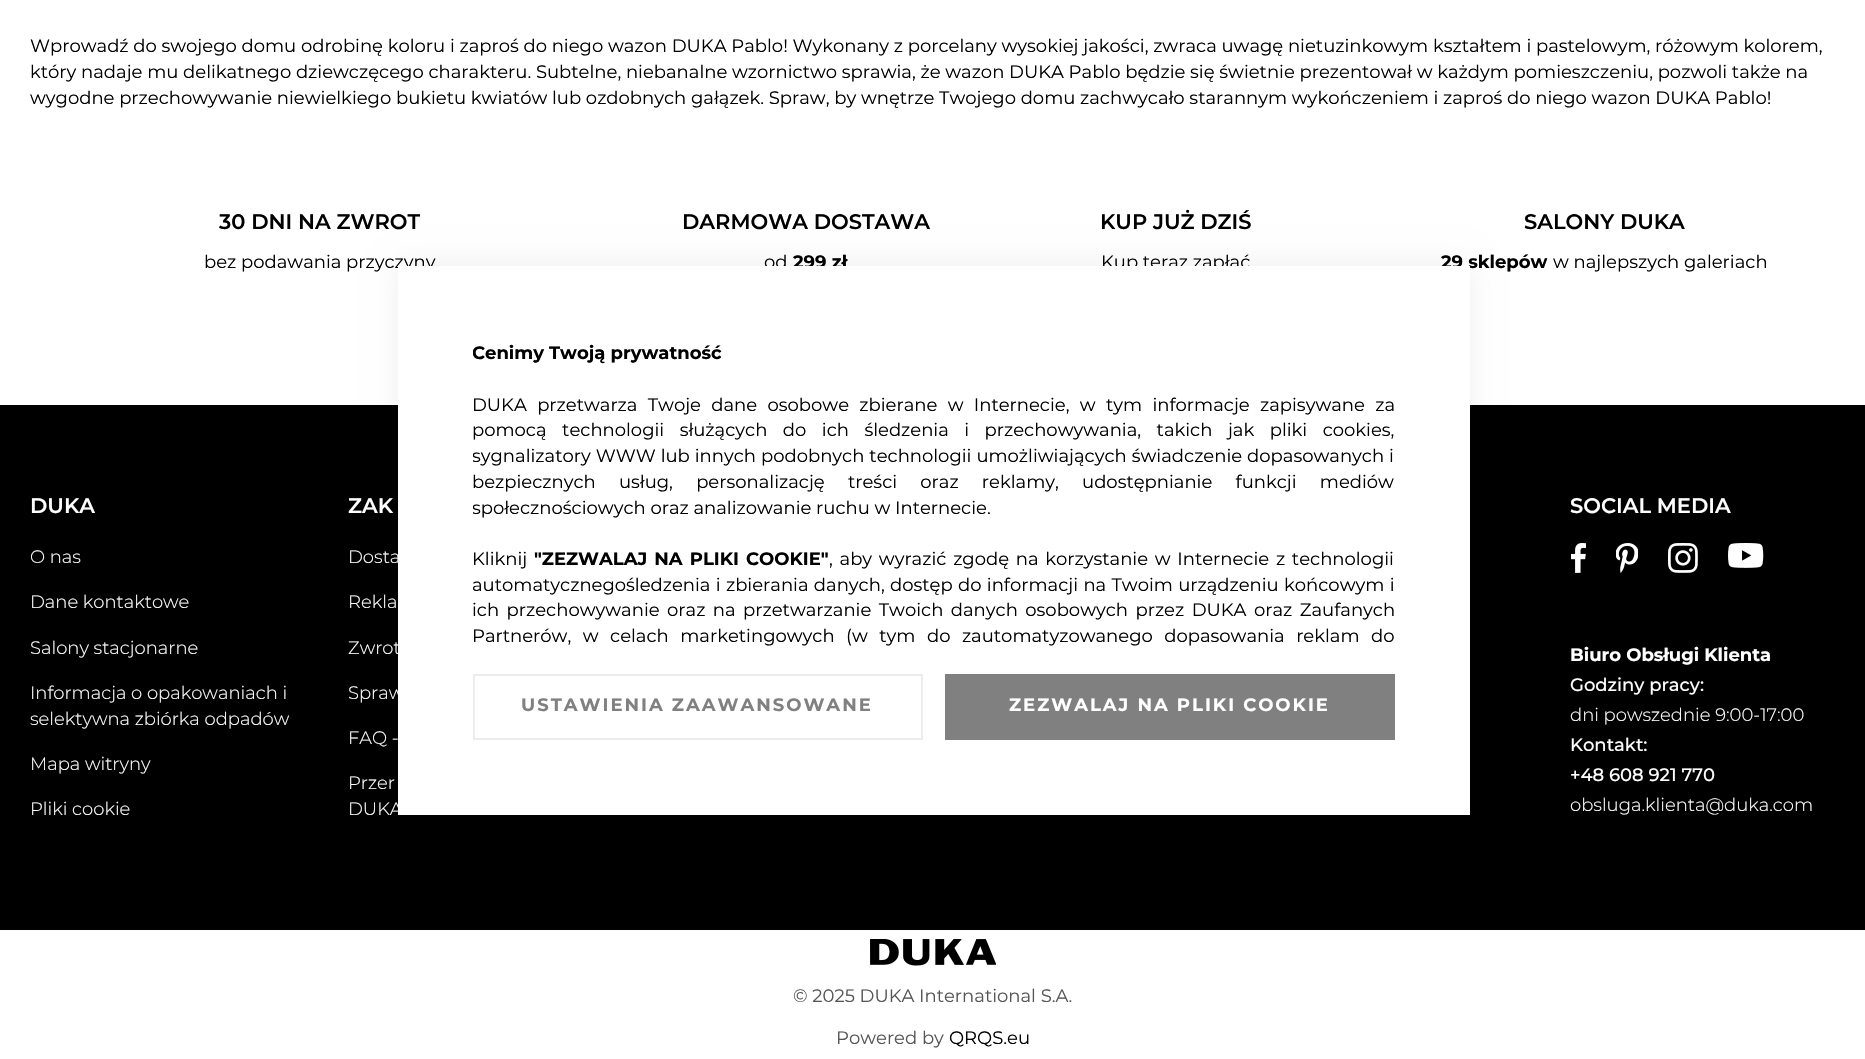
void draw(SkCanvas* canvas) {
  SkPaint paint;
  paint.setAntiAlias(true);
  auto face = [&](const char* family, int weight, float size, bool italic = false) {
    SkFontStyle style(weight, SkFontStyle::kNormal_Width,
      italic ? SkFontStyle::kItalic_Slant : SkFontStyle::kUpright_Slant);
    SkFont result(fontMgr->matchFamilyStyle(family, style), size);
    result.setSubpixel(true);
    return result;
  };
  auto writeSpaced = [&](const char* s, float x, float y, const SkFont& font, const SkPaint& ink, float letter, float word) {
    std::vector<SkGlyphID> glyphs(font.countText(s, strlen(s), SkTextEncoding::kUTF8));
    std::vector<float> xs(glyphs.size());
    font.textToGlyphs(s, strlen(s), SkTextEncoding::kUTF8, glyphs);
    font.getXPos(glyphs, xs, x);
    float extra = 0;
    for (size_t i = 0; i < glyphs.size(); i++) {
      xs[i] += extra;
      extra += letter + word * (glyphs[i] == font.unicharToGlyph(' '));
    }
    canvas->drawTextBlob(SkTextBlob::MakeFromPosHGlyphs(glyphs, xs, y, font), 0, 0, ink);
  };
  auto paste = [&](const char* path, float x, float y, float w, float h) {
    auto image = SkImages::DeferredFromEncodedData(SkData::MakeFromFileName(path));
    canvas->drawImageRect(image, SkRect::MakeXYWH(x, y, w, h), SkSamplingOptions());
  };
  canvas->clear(0xffffffff);
  paint.setColor(0xff000000);
  canvas->drawRect(SkRect::MakeXYWH(0, 405, 1865, 525), paint);
  paste("img/1.png", 1571, 543, 15, 30);
  paste("img/2.png", 1616, 543, 22, 30);
  paste("img/3.png", 1668, 543, 30, 30);
  paste("img/4.png", 1728, 543, 36, 25);
  paste("img/5.png", 870, 939, 126, 27);
  paint.setColor(0x0f000000);
  paint.setMaskFilter(SkMaskFilter::MakeBlur(kNormal_SkBlurStyle, 13.5f));
  canvas->drawRect(SkRect::MakeXYWH(398, 263, 1072, 549), paint);
  paint.setMaskFilter(nullptr);
  auto f0 = face("Montserrat", 400, 18);
  paint.setColor(0xff000000);
  {
    const struct { const char* s; float x, y; } items[] = {
      {"Wprowadź do swojego domu odrobinę koloru i zaproś do niego wazon DUKA Pablo! Wykonany z porcelany wysokiej jakości, zwraca uwagę nietuzinkowym kształtem i pastelowym, różowym kolorem,", 30, 52},
      {"który nadaje mu delikatnego dziewczęcego charakteru. Subtelne, niebanalne wzornictwo sprawia, że wazon DUKA Pablo będzie się świetnie prezentował w każdym pomieszczeniu, pozwoli także na", 30, 78},
      {"wygodne przechowywanie niewielkiego bukietu kwiatów lub ozdobnych gałązek. Spraw, by wnętrze Twojego domu zachwycało starannym wykończeniem i zaproś do niego wazon DUKA Pablo!", 30, 104},
    };
    for (auto [s, x, y] : items) {
      canvas->drawString(s, x, y, f0, paint);
    }
  }
  auto f1 = face("Montserrat", 600, 21);
  canvas->drawString("30 DNI NA ZWROT", 219, 229, f1, paint);
  canvas->drawString("bez podawania przyczyny", 204, 268, f0, paint);
  canvas->drawString("DARMOWA DOSTAWA", 682, 229, f1, paint);
  canvas->drawString("od", 764, 268, f0, paint);
  auto f2 = face("Montserrat", 700, 18);
  canvas->drawString("299 zł", 793, 268, f2, paint);
  canvas->drawString("KUP JUŻ DZIŚ", 1100, 229, f1, paint);
  canvas->drawString("Kup teraz zapłać", 1101, 268, f0, paint);
  canvas->drawString("SALONY DUKA", 1524, 229, f1, paint);
  canvas->drawString("29 sklepów", 1441, 268, f2, paint);
  canvas->drawString("w najlepszych galeriach", 1553, 268, f0, paint);
  paint.setColor(0xffffffff);
  canvas->drawString("DUKA", 30, 513, f1, paint);
  auto f3 = face("Montserrat", 300, 18);
  {
    const struct { const char* s; float x, y; } items[] = {
      {"O nas", 30, 563},
      {"Dane kontaktowe", 30, 608},
      {"Salony stacjonarne", 30, 654},
      {"Informacja o opakowaniach i", 30, 699},
      {"selektywna zbiórka odpadów", 30, 725},
      {"Mapa witryny", 30, 770},
      {"Pliki cookie", 30, 815},
    };
    for (auto [s, x, y] : items) {
      canvas->drawString(s, x, y, f3, paint);
    }
  }
  canvas->drawString("ZAK", 348, 513, f1, paint);
  {
    const struct { const char* s; float x, y; } items[] = {
      {"Dosta", 348, 563},
      {"Rekla", 348, 608},
      {"Zwrot", 348, 654},
      {"Spraw", 348, 699},
      {"FAQ -", 348, 744},
      {"Przer", 348, 789},
      {"DUKA", 348, 815},
    };
    for (auto [s, x, y] : items) {
      canvas->drawString(s, x, y, f3, paint);
    }
  }
  canvas->drawString("SOCIAL MEDIA", 1570, 513, f1, paint);
  canvas->drawString("Biuro Obsługi Klienta", 1570, 661, f2, paint);
  auto f4 = face("Montserrat", 500, 18);
  canvas->drawString("Godziny pracy:", 1570, 691, f4, paint);
  canvas->drawString("dni powszednie 9:00-17:00", 1570, 721, f3, paint);
  canvas->drawString("Kontakt:", 1570, 751, f4, paint);
  canvas->drawString("+48 608 921 770", 1570, 781, f4, paint);
  canvas->drawString("obsluga.klienta@duka.com", 1570, 811, f3, paint);
  paint.setColor(0xff555555);
  canvas->drawString("© 2025 DUKA International S.A.", 793, 1002, f0, paint);
  canvas->drawString("Powered by", 836, 1044, f0, paint);
  paint.setColor(0xff000000);
  canvas->drawString("QRQS.eu", 949, 1044, f0, paint);
  paint.setColor(0xffffffff);
  canvas->drawRect(SkRect::MakeXYWH(398, 266, 1072, 549), paint);
  canvas->save();
  canvas->clipRect(SkRect::MakeXYWH(473, 341, 922, 318));
  paint.setColor(0xff000000);
  canvas->drawString("Cenimy Twoją prywatność", 472, 359, f2, paint);
  canvas->restore();
  writeSpaced("DUKA przetwarza Twoje dane osobowe zbierane w Internecie, w tym informacje zapisywane za", 472, 411, f0, paint, 0, 5.6f);
  writeSpaced("pomocą technologii służących do ich śledzenia i przechowywania, takich jak pliki cookies,", 472, 436, f0, paint, 0, 10.75f);
  canvas->save();
  canvas->clipRect(SkRect::MakeXYWH(473, 341, 922, 318));
  writeSpaced("sygnalizatory WWW lub innych podobnych technologii umożliwiających świadczenie dopasowanych i", 472, 462, f0, paint, 0, 0.25f);
  canvas->restore();
  writeSpaced("bezpiecznych usług, personalizację treści oraz reklamy, udostępnianie funkcji mediów", 472, 488, f0, paint, 0, 18.5f);
  canvas->save();
  canvas->clipRect(SkRect::MakeXYWH(473, 341, 922, 318));
  canvas->drawString("społecznościowych oraz analizowanie ruchu w Internecie.", 472, 514, f0, paint);
  canvas->restore();
  canvas->drawString("Kliknij", 472, 565, f0, paint);
  writeSpaced("\"ZEZWALAJ NA PLIKI COOKIE\"", 534, 565, f2, paint, 0, 2);
  writeSpaced(", aby wyrazić zgodę na korzystanie w Internecie z technologii", 829, 565, f0, paint, 0, 2);
  writeSpaced("automatycznegośledzenia i zbierania danych, dostęp do informacji na Twoim urządzeniu końcowym i", 472, 591, f0, paint, 0, 0.6f);
  writeSpaced("ich przechowywanie oraz na przetwarzanie Twoich danych osobowych przez DUKA oraz Zaufanych", 472, 616, f0, paint, 0, 2.75f);
  writeSpaced("Partnerów, w celach marketingowych (w tym do zautomatyzowanego dopasowania reklam do", 472, 642, f0, paint, 0, 6.75f);
  paint.setStroke(true);
  paint.setStrokeWidth(2);
  paint.setColor(0xffececec);
  canvas->drawRect(SkRect::MakeXYWH(474, 675, 448, 64), paint);
  paint.setStroke(false);
  paint.setColor(0xff808080);
  writeSpaced("USTAWIENIA ZAAWANSOWANE", 521, 711, f2, paint, 2, 0);
  canvas->drawRect(SkRect::MakeXYWH(945, 674, 450, 66), paint);
  paint.setColor(0xffffffff);
  writeSpaced("ZEZWALAJ NA PLIKI COOKIE", 1009, 711, f2, paint, 2, 0);
}
